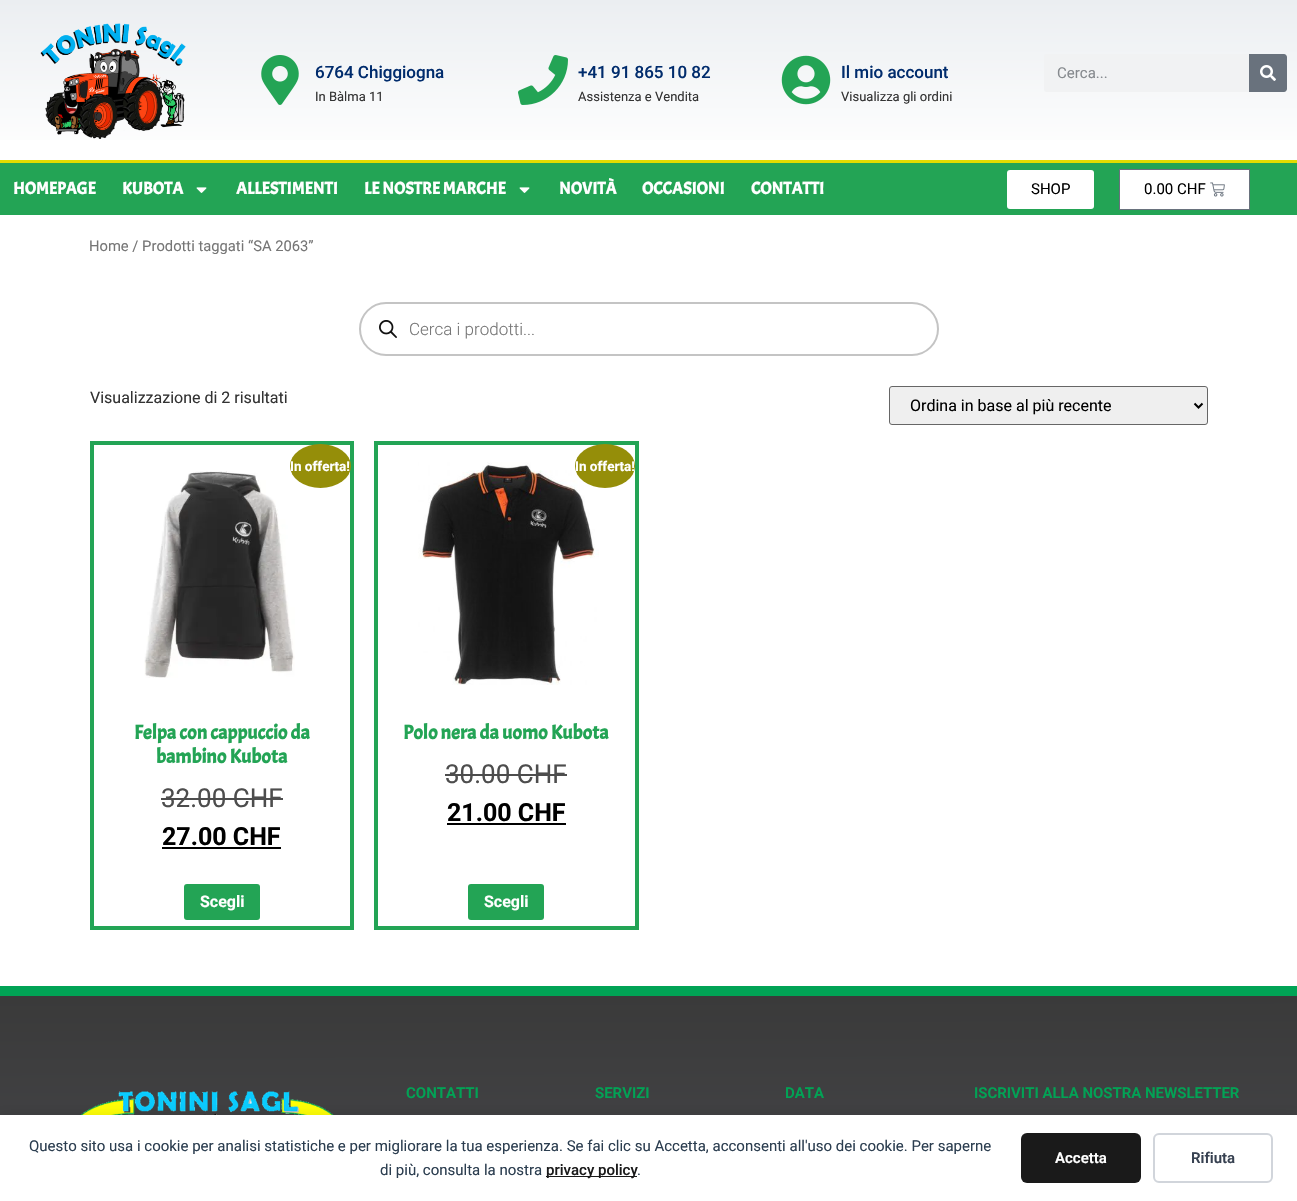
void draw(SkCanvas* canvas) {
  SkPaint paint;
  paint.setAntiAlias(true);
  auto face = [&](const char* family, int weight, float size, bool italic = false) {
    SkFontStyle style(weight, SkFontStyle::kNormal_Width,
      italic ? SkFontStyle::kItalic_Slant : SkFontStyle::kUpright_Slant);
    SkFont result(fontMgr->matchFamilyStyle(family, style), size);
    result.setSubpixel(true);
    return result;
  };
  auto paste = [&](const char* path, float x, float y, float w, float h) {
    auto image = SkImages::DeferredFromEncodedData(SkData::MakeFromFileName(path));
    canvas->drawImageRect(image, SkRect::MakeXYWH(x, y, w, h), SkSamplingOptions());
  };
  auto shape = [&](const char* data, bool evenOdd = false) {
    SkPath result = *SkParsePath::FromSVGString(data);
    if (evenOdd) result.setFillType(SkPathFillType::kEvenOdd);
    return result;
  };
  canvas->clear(0xffffffff);
  {
    const SkColor colors[] = {0xffebeef1, 0xffffffff};
    const float stops[] = {0, 1};
    const SkPoint ends[] = {{649, 0}, {649, 160}};
    paint.setShader(SkGradientShader::MakeLinear(ends, colors, stops, 2, SkTileMode::kClamp));
    paint.setAlpha(255);
  }
  canvas->drawRect(SkRect::MakeXYWH(0, 0, 1297, 140), paint);
  paste("img/1.png", 40, 23, 146, 116);
  paste("img/2.png", 261, 55, 38, 50);
  paste("img/3.png", 518, 55, 50, 50);
  paste("img/4.png", 781, 55, 50, 50);
  paint.setShader(nullptr);
  paint.setColor(0xfff1f2f3);
  canvas->drawRoundRect(SkRect::MakeXYWH(1044, 54, 243, 38), 3, 3, paint);
  paint.setColor(0xff69727d);
  canvas->drawPath(shape("M1249 54H1284C1285.5 54 1287 55.5 1287 57V89C1287 90.5 1285.5 92 1284 92H1249Z"), paint);
  paste("img/5.png", 1260, 65, 16, 16);
  paint.setColor(0xff23a455);
  canvas->drawRect(SkRect::MakeXYWH(0, 163, 1297, 52), paint);
  paint.setColor(0xffe2db00);
  canvas->drawRect(SkRect::MakeXYWH(0, 160, 1297, 3), paint);
  paste("img/6.png", 196, 187, 11, 6);
  paste("img/6.png", 519, 187, 11, 6);
  paint.setColor(0xffffffff);
  canvas->drawRoundRect(SkRect::MakeXYWH(1007, 170, 87, 39), 3, 3, paint);
  canvas->drawRect(SkRect::MakeXYWH(1119.5f, 169.5f, 130, 40), paint);
  paint.setStroke(true);
  paint.setStrokeWidth(1);
  paint.setColor(0xff69727d);
  canvas->drawRect(SkRect::MakeXYWH(1119.5f, 169.5f, 130, 40), paint);
  paste("img/7.png", 1210, 182, 15, 15);
  paint.setStrokeWidth(2);
  paint.setColor(0xffc4c4c4);
  canvas->drawRoundRect(SkRect::MakeXYWH(360, 303, 578, 52), 26, 26, paint);
  paste("img/8.png", 379, 320, 18, 18);
  paint.setStroke(false);
  paint.setColor(0xffefefef);
  canvas->drawRoundRect(SkRect::MakeXYWH(889.5f, 386.5f, 318, 38), 2.5f, 2.5f, paint);
  paint.setStroke(true);
  paint.setStrokeWidth(1);
  paint.setColor(0xff666666);
  canvas->drawRoundRect(SkRect::MakeXYWH(889.5f, 386.5f, 318, 38), 2.5f, 2.5f, paint);
  paint.setStrokeWidth(2);
  paint.setColor(0xff000000);
  canvas->drawPath(shape("M1194.5 403.5L1198.5 407.5L1202.5 403.5"), paint);
  paint.setStrokeWidth(4);
  paint.setColor(0xff23a455);
  canvas->drawRect(SkRect::MakeXYWH(92, 443, 260, 485), paint);
  paste("img/9.png", 144, 471, 151, 207);
  paint.setStroke(false);
  paint.setColor(0xff958e09);
  canvas->drawOval(SkRect::MakeXYWH(290, 444, 61, 44), paint);
  paint.setColor(0xff4d4d4d);
  canvas->drawRect(SkRect::MakeXYWH(161, 798, 122, 2), paint);
  paint.setColor(0xff000000);
  canvas->drawRect(SkRect::MakeXYWH(162, 847, 119, 2), paint);
  paint.setColor(0xff23a455);
  canvas->drawRoundRect(SkRect::MakeXYWH(184, 884, 76, 36), 3, 3, paint);
  paint.setStroke(true);
  canvas->drawRect(SkRect::MakeXYWH(376, 443, 261, 485), paint);
  paste("img/10.png", 418, 462, 181, 223);
  paint.setStroke(false);
  paint.setColor(0xff958e09);
  canvas->drawOval(SkRect::MakeXYWH(575, 444, 60, 44), paint);
  paint.setColor(0xff4d4d4d);
  canvas->drawRect(SkRect::MakeXYWH(445, 774, 122, 2), paint);
  paint.setColor(0xff000000);
  canvas->drawRect(SkRect::MakeXYWH(447, 823, 119, 2), paint);
  paint.setColor(0xff23a455);
  canvas->drawRoundRect(SkRect::MakeXYWH(468, 884, 76, 36), 3, 3, paint);
  {
    const SkColor colors[] = {0xff575860, 0xff3a3a3a};
    const float stops[] = {0, 1};
    const SkPoint ends[] = {{649, 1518}, {648, 996}};
    paint.setShader(SkGradientShader::MakeLinear(ends, colors, stops, 2, SkTileMode::kClamp));
    paint.setAlpha(255);
  }
  canvas->drawRect(SkRect::MakeXYWH(0, 996, 1297, 119), paint);
  paint.setShader(nullptr);
  paint.setColor(0xff01a355);
  canvas->drawRect(SkRect::MakeXYWH(0, 986, 1297, 10), paint);
  paste("img/11.png", 80, 1091, 254, 24);
  paint.setColor(0x14000000);
  paint.setMaskFilter(SkMaskFilter::MakeBlur(kNormal_SkBlurStyle, 5));
  canvas->drawRect(SkRect::MakeXYWH(0, 1113, 1297, 86), paint);
  paint.setMaskFilter(nullptr);
  paint.setColor(0xffffffff);
  canvas->drawRect(SkRect::MakeXYWH(0, 1115, 1297, 86), paint);
  paint.setColor(0xff1a1a1a);
  canvas->drawRect(SkRect::MakeXYWH(546, 1176, 91, 1), paint);
  canvas->drawRoundRect(SkRect::MakeXYWH(1021, 1133, 120, 50), 6, 6, paint);
  paint.setStroke(true);
  paint.setStrokeWidth(2);
  paint.setColor(0xffd1d5db);
  canvas->drawRoundRect(SkRect::MakeXYWH(1154, 1134, 118, 48), 5, 5, paint);
  auto f0 = face("Roboto", 500, 17);
  paint.setStroke(false);
  paint.setColor(0xff012c6d);
  canvas->drawString("6764 Chiggiogna", 315, 78, f0, paint);
  auto f1 = face("Roboto", 400, 13);
  paint.setColor(0xff333333);
  canvas->drawString("In Bàlma 11", 315, 101, f1, paint);
  paint.setColor(0xff012c6d);
  canvas->drawString("+41 91 865 10 82", 578, 78, f0, paint);
  paint.setColor(0xff333333);
  canvas->drawString("Assistenza e Vendita", 578, 101, f1, paint);
  paint.setColor(0xff012c6d);
  canvas->drawString("Il mio account", 841, 78, f0, paint);
  paint.setColor(0xff333333);
  canvas->drawString("Visualizza gli ordini", 841, 101, f1, paint);
  auto f2 = face("Roboto", 400, 15);
  paint.setColor(0xff868a8e);
  canvas->drawString("Cerca...", 1057, 78, f2, paint);
  auto f3 = face("Acme", 700, 17);
  paint.setColor(0xffffffff);
  {
    const struct { const char* s; float x, y; } items[] = {
      {"HOMEPAGE", 13, 194},
      {"KUBOTA", 122, 194},
      {"ALLESTIMENTI", 236, 194},
      {"LE NOSTRE MARCHE", 364, 194},
      {"NOVITÀ", 559, 194},
      {"OCCASIONI", 642, 194},
      {"CONTATTI", 751, 194},
    };
    for (auto [s, x, y] : items) {
      canvas->drawString(s, x, y, f3, paint);
    }
  }
  paint.setColor(0xff000000);
  canvas->drawString("SHOP", 1031, 194, f2, paint);
  canvas->drawString("0.00 CHF", 1144, 194, f2, paint);
  auto f4 = face("Roboto", 400, 14.75f);
  paint.setColor(0xff767676);
  canvas->drawString("Home / Prodotti taggati “SA 2063”", 89, 251, f4, paint);
  auto f5 = face("Roboto", 300, 17);
  canvas->drawString("Cerca i prodotti...", 409, 335, f5, paint);
  auto f6 = face("Roboto", 400, 16);
  paint.setColor(0xff333333);
  canvas->drawString("Visualizzazione di 2 risultati", 90, 403, f6, paint);
  paint.setColor(0xff000000);
  canvas->drawString("Ordina in base al più recente", 910, 411, f6, paint);
  auto f7 = face("Roboto", 700, 13.5f);
  paint.setColor(0xffffffff);
  canvas->drawString("In offerta!", 290, 471, f7, paint);
  auto f8 = face("Acme", 700, 20);
  paint.setColor(0xff23a455);
  canvas->drawString("Felpa con cappuccio da", 134, 739, f8, paint);
  canvas->drawString("bambino Kubota", 156, 763, f8, paint);
  auto f9 = face("Roboto", 400, 26);
  paint.setColor(0xff4d4d4d);
  canvas->drawString("32.00 CHF", 161, 807, f9, paint);
  auto f10 = face("Roboto", 700, 25);
  paint.setColor(0xff000000);
  canvas->drawString("27.00 CHF", 162, 845, f10, paint);
  auto f11 = face("Roboto", 700, 16);
  paint.setColor(0xffffffff);
  canvas->drawString("Scegli", 200, 907, f11, paint);
  canvas->drawString("In offerta!", 575, 471, f7, paint);
  paint.setColor(0xff23a455);
  canvas->drawString("Polo nera da uomo Kubota", 403, 739, f8, paint);
  paint.setColor(0xff4d4d4d);
  canvas->drawString("30.00 CHF", 445, 783, f9, paint);
  paint.setColor(0xff000000);
  canvas->drawString("21.00 CHF", 447, 821, f10, paint);
  paint.setColor(0xffffffff);
  canvas->drawString("Scegli", 484, 907, f11, paint);
  auto f12 = face("Roboto", 600, 15);
  paint.setColor(0xff01a355);
  {
    const struct { const char* s; float x, y; } items[] = {
      {"CONTATTI", 406, 1098},
      {"SERVIZI", 595, 1098},
      {"DATA", 785, 1098},
      {"ISCRIVITI ALLA NOSTRA NEWSLETTER", 974, 1098},
    };
    for (auto [s, x, y] : items) {
      canvas->drawString(s, x, y, f12, paint);
    }
  }
  paint.setColor(0xff2c3e50);
  canvas->drawString("Questo sito usa i cookie per analisi statistiche e per migliorare la tua esperienza. Se fai clic su Accetta, acconsenti all'uso dei cookie. Per saperne", 29, 1151, f2, paint);
  canvas->drawString("di più, consulta la nostra", 380, 1175, f2, paint);
  auto f13 = face("Roboto", 500, 15);
  paint.setColor(0xff1a1a1a);
  canvas->drawString("privacy policy", 546, 1175, f13, paint);
  paint.setColor(0xff2c3e50);
  canvas->drawString(".", 637, 1175, f2, paint);
  paint.setColor(0xffffffff);
  canvas->drawString("Accetta", 1055, 1163, f12, paint);
  paint.setColor(0xff374151);
  canvas->drawString("Rifiuta", 1191, 1163, f12, paint);
}
